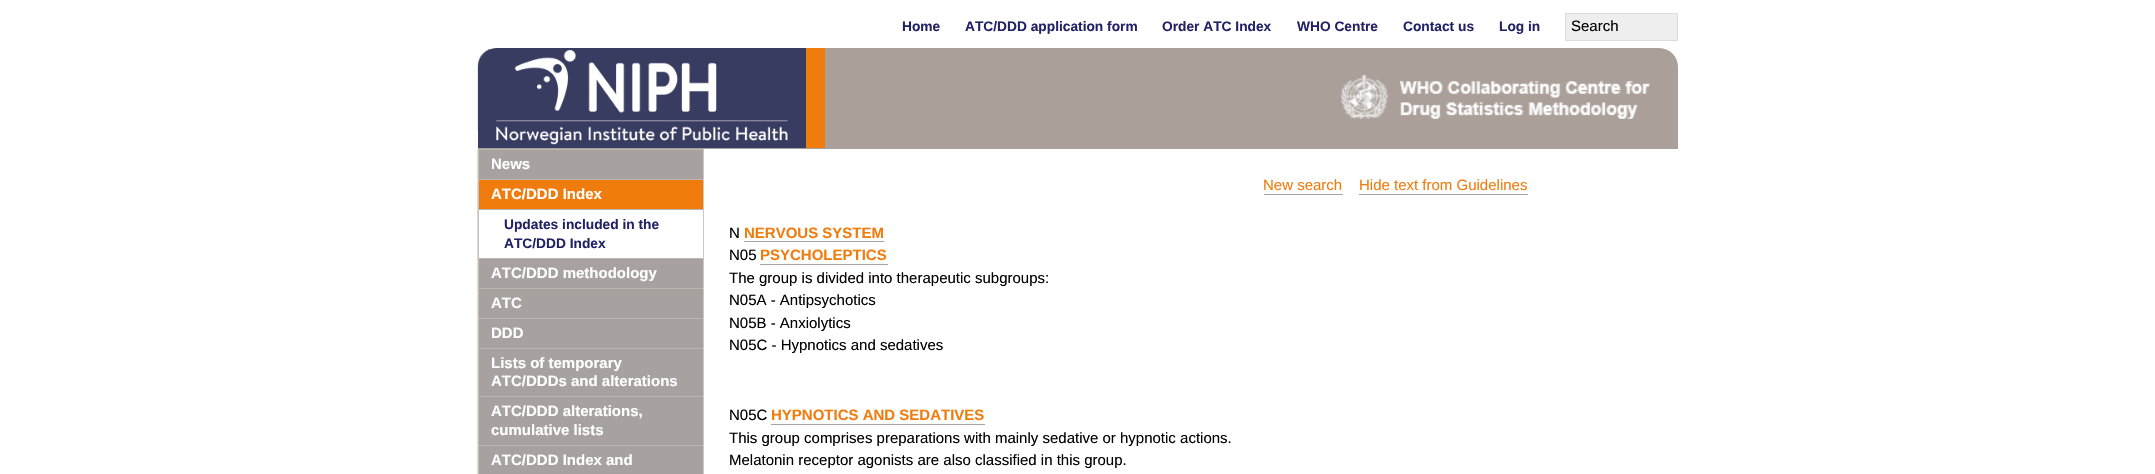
void draw(SkCanvas* canvas) {
  SkPaint paint;
  paint.setAntiAlias(true);
  auto face = [&](const char* family, int weight, float size, bool italic = false) {
    SkFontStyle style(weight, SkFontStyle::kNormal_Width,
      italic ? SkFontStyle::kItalic_Slant : SkFontStyle::kUpright_Slant);
    SkFont result(fontMgr->matchFamilyStyle(family, style), size);
    result.setSubpixel(true);
    return result;
  };
  auto paste = [&](const char* path, float x, float y, float w, float h) {
    auto image = SkImages::DeferredFromEncodedData(SkData::MakeFromFileName(path));
    canvas->drawImageRect(image, SkRect::MakeXYWH(x, y, w, h), SkSamplingOptions());
  };
  auto shape = [&](const char* data, bool evenOdd = false) {
    SkPath result = *SkParsePath::FromSVGString(data);
    if (evenOdd) result.setFillType(SkPathFillType::kEvenOdd);
    return result;
  };
  canvas->clear(0xffffffff);
  paint.setColor(0xffeeeeee);
  canvas->drawRect(SkRect::MakeXYWH(1565.5f, 13.5f, 112, 27), paint);
  paint.setStroke(true);
  paint.setStrokeWidth(1);
  paint.setColor(0xffdddddd);
  canvas->drawRect(SkRect::MakeXYWH(1565.5f, 13.5f, 112, 27), paint);
  paste("img/4.png", 477, 148, 227, 326);
  paint.setStroke(false);
  paint.setColor(0xffaba099);
  canvas->drawPath(shape("M497 48H1659C1669.5 48 1678 56.5 1678 67V149H478V67C478 56.5 486.5 48 497 48Z"), paint);
  paste("img/1.png", 477, 48, 13, 84);
  paint.setColor(0xff393c61);
  canvas->drawPath(shape("M497 48H825V148H478V67C478 56.5 486.5 48 497 48Z"), paint);
  paint.setColor(0xfff17c0e);
  canvas->drawRect(SkRect::MakeXYWH(806, 48, 19, 100), paint);
  paste("img/2.png", 496, 50, 292, 95);
  paste("img/3.png", 1341, 75, 309, 44);
  {
    const struct { float x, y, w, h; SkColor color; } items[] = {
      {479, 150, 224, 29, 0xffa7a2a0},
      {479, 149, 224, 1, 0xffbdb6b0},
      {479, 179, 224, 1, 0xffbdb6b0},
      {479, 180, 224, 29, 0xfff17c0e},
      {479, 210, 224, 48, 0xffffffff},
      {479, 209, 224, 1, 0xffbdb6b0},
      {479, 259, 224, 29, 0xffa7a2a0},
      {479, 258, 224, 1, 0xffbdb6b0},
      {479, 289, 224, 29, 0xffa7a2a0},
      {479, 288, 224, 1, 0xffbdb6b0},
      {479, 319, 224, 29, 0xffa7a2a0},
      {479, 318, 224, 1, 0xffbdb6b0},
      {479, 349, 224, 47, 0xffa7a2a0},
      {479, 348, 224, 1, 0xffbdb6b0},
      {479, 397, 224, 48, 0xffa7a2a0},
      {479, 396, 224, 1, 0xffbdb6b0},
      {479, 446, 224, 28, 0xffa7a2a0},
      {479, 445, 224, 1, 0xffbdb6b0},
      {1264, 194, 79, 1, 0xffa7a2a0},
      {1359, 194, 169, 1, 0xffa7a2a0},
      {744, 241, 140, 1, 0xffa7a2a0},
      {760, 264, 128, 1, 0xffa7a2a0},
      {771, 424, 214, 1, 0xffa7a2a0},
    };
    for (auto [x, y, w, h, color] : items) {
      paint.setColor(color);
      canvas->drawRect(SkRect::MakeXYWH(x, y, w, h), paint);
    }
  }
  auto f0 = face("Liberation Sans", 700, 13.75f);
  paint.setColor(0xff222266);
  {
    const struct { const char* s; float x, y; } items[] = {
      {"Home", 902, 31},
      {"ATC/DDD application form", 965, 31},
      {"Order ATC Index", 1162, 31},
      {"WHO Centre", 1297, 31},
      {"Contact us", 1403, 31},
      {"Log in", 1499, 31},
    };
    for (auto [s, x, y] : items) {
      canvas->drawString(s, x, y, f0, paint);
    }
  }
  auto f1 = face("Liberation Sans", 400, 15);
  paint.setColor(0xff000000);
  canvas->drawString("Search", 1571, 31, f1, paint);
  auto f2 = face("Liberation Sans", 700, 15);
  paint.setColor(0xffffffff);
  canvas->drawString("News", 491, 169, f2, paint);
  canvas->drawString("ATC/DDD Index", 491, 199, f2, paint);
  paint.setColor(0xff222266);
  canvas->drawString("Updates included in the", 504, 229, f0, paint);
  canvas->drawString("ATC/DDD Index", 504, 248, f0, paint);
  paint.setColor(0xffffffff);
  {
    const struct { const char* s; float x, y; } items[] = {
      {"ATC/DDD methodology", 491, 278},
      {"ATC", 491, 308},
      {"DDD", 491, 338},
      {"Lists of temporary", 491, 368},
      {"ATC/DDDs and alterations", 491, 386},
      {"ATC/DDD alterations,", 491, 416},
      {"cumulative lists", 491, 435},
      {"ATC/DDD Index and", 491, 465},
    };
    for (auto [s, x, y] : items) {
      canvas->drawString(s, x, y, f2, paint);
    }
  }
  paint.setColor(0xfff17c0e);
  canvas->drawString("New search", 1263, 190, f1, paint);
  canvas->drawString("Hide text from Guidelines", 1359, 190, f1, paint);
  paint.setColor(0xff000000);
  canvas->drawString("N", 729, 238, f1, paint);
  paint.setColor(0xfff17c0e);
  canvas->drawString("NERVOUS SYSTEM", 744, 238, f2, paint);
  paint.setColor(0xff000000);
  canvas->drawString("N05", 729, 260, f1, paint);
  paint.setColor(0xfff17c0e);
  canvas->drawString("PSYCHOLEPTICS", 760, 260, f2, paint);
  paint.setColor(0xff000000);
  {
    const struct { const char* s; float x, y; } items[] = {
      {"The group is divided into therapeutic subgroups:", 729, 283},
      {"N05A - Antipsychotics", 729, 305},
      {"N05B - Anxiolytics", 729, 328},
      {"N05C - Hypnotics and sedatives", 729, 350},
      {"N05C", 729, 420},
    };
    for (auto [s, x, y] : items) {
      canvas->drawString(s, x, y, f1, paint);
    }
  }
  paint.setColor(0xfff17c0e);
  canvas->drawString("HYPNOTICS AND SEDATIVES", 771, 420, f2, paint);
  paint.setColor(0xff000000);
  canvas->drawString("This group comprises preparations with mainly sedative or hypnotic actions.", 729, 443, f1, paint);
  canvas->drawString("Melatonin receptor agonists are also classified in this group.", 729, 465, f1, paint);
}
